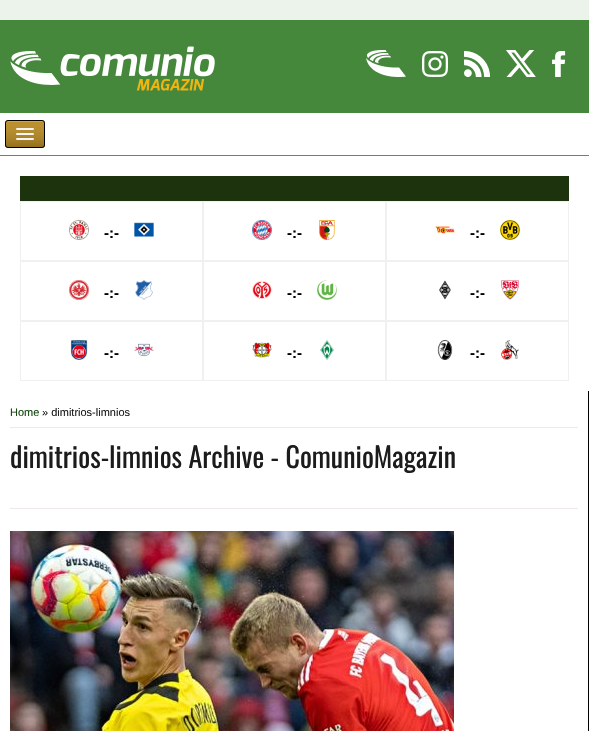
void draw(SkCanvas* canvas) {
  SkPaint paint;
  paint.setAntiAlias(true);
  auto face = [&](const char* family, int weight, float size, bool italic = false) {
    SkFontStyle style(weight, SkFontStyle::kNormal_Width,
      italic ? SkFontStyle::kItalic_Slant : SkFontStyle::kUpright_Slant);
    SkFont result(fontMgr->matchFamilyStyle(family, style), size);
    result.setSubpixel(true);
    return result;
  };
  auto paste = [&](const char* path, float x, float y, float w, float h) {
    auto image = SkImages::DeferredFromEncodedData(SkData::MakeFromFileName(path));
    canvas->drawImageRect(image, SkRect::MakeXYWH(x, y, w, h), SkSamplingOptions());
  };
  auto shape = [&](const char* data, bool evenOdd = false) {
    SkPath result = *SkParsePath::FromSVGString(data);
    if (evenOdd) result.setFillType(SkPathFillType::kEvenOdd);
    return result;
  };
  canvas->clear(0xffecf3eb);
  paint.setColor(0xff45873b);
  canvas->drawRect(SkRect::MakeXYWH(0, 20, 589, 93), paint);
  paste("img/1.png", 10, 46, 205, 45);
  paste("img/2.png", 366, 50, 40, 27);
  paste("img/3.png", 422, 51, 26, 26);
  paste("img/4.png", 464, 51, 26, 26);
  paste("img/5.png", 506, 50, 30, 27);
  paste("img/6.png", 552, 51, 14, 26);
  paint.setColor(0xffffffff);
  canvas->drawRect(SkRect::MakeXYWH(0, 113, 589, 618), paint);
  paint.setColor(0xffb88a21);
  canvas->drawRoundRect(SkRect::MakeXYWH(5, 120, 40, 28), 3, 3, paint);
  {
    const SkColor colors[] = {0x0dffffff, 0x33000000};
    const float stops[] = {0, 1};
    const SkPoint ends[] = {{25, 121}, {25, 147}};
    paint.setShader(SkGradientShader::MakeLinear(ends, colors, stops, 2, SkTileMode::kClamp));
    paint.setAlpha(255);
  }
  canvas->drawRect(SkRect::MakeXYWH(5, 121, 40, 26), paint);
  paint.setShader(nullptr);
  paint.setColor(0xffc9a656);
  canvas->drawPath(shape("M8 122H42C43 122 44 123 44 124C44 119.5 40.5 121 36.5 121H13.5C9.5 121 6 119.5 6 124C6 123 7 122 8 122Z"), paint);
  paint.setStroke(true);
  paint.setStrokeWidth(1);
  paint.setColor(0xff000000);
  canvas->drawRoundRect(SkRect::MakeXYWH(5.5f, 120.5f, 39, 27), 2.5f, 2.5f, paint);
  paint.setStroke(false);
  paint.setColor(0xfff5f5f5);
  canvas->drawRoundRect(SkRect::MakeXYWH(16, 128, 18, 2), 1, 1, paint);
  canvas->drawRoundRect(SkRect::MakeXYWH(16, 133, 18, 2), 1, 1, paint);
  canvas->drawRoundRect(SkRect::MakeXYWH(16, 138, 18, 2), 1, 1, paint);
  paint.setColor(0xff4e9944);
  canvas->drawRect(SkRect::MakeXYWH(0, 155, 589, 1), paint);
  paint.setColor(0xff1d330d);
  canvas->drawRect(SkRect::MakeXYWH(20, 176, 549, 25), paint);
  paint.setStroke(true);
  paint.setColor(0xffeff0ef);
  canvas->drawRect(SkRect::MakeXYWH(20.5f, 201.5f, 182, 59), paint);
  paste("img/7.png", 69, 220, 20, 20);
  paste("img/8.png", 134, 222, 20, 15);
  canvas->drawRect(SkRect::MakeXYWH(203.5f, 201.5f, 182, 59), paint);
  paste("img/9.png", 252, 220, 20, 20);
  paste("img/10.png", 319, 220, 16, 20);
  canvas->drawRect(SkRect::MakeXYWH(386.5f, 201.5f, 182, 59), paint);
  paste("img/11.png", 435, 226, 20, 8);
  paste("img/12.png", 500, 220, 20, 20);
  canvas->drawRect(SkRect::MakeXYWH(20.5f, 261.5f, 182, 59), paint);
  paste("img/13.png", 69, 280, 20, 20);
  paste("img/14.png", 135, 280, 18, 20);
  canvas->drawRect(SkRect::MakeXYWH(203.5f, 261.5f, 182, 59), paint);
  paste("img/15.png", 252, 280, 20, 19);
  paste("img/16.png", 317, 280, 20, 20);
  canvas->drawRect(SkRect::MakeXYWH(386.5f, 261.5f, 182, 59), paint);
  paste("img/17.png", 439, 280, 12, 20);
  paste("img/18.png", 501, 280, 18, 20);
  canvas->drawRect(SkRect::MakeXYWH(20.5f, 321.5f, 182, 59), paint);
  paste("img/19.png", 70, 340, 18, 20);
  paste("img/20.png", 134, 343, 20, 14);
  canvas->drawRect(SkRect::MakeXYWH(203.5f, 321.5f, 182, 59), paint);
  paste("img/21.png", 252, 342, 20, 16);
  paste("img/22.png", 320, 340, 14, 20);
  canvas->drawRect(SkRect::MakeXYWH(386.5f, 321.5f, 182, 59), paint);
  paste("img/23.png", 437, 340, 16, 20);
  paste("img/24.png", 501, 340, 18, 20);
  paint.setStroke(false);
  {
    const struct { float x, y, w, h; SkColor color; } items[] = {
      {588, 391, 1, 340, 0xff000000},
      {10, 427, 568, 1, 0xffedeae9},
      {10, 508, 568, 1, 0xffefeae9},
    };
    for (auto [x, y, w, h, color] : items) {
      paint.setColor(color);
      canvas->drawRect(SkRect::MakeXYWH(x, y, w, h), paint);
    }
  }
  paste("img/25.png", 10, 531, 444, 200);
  auto f0 = face("Liberation Sans", 700, 15);
  paint.setColor(0xff000000);
  {
    const struct { const char* s; float x, y; } items[] = {
      {"-:-", 104, 238},
      {"-:-", 287, 238},
      {"-:-", 470, 238},
      {"-:-", 104, 298},
      {"-:-", 287, 298},
      {"-:-", 470, 298},
      {"-:-", 104, 358},
      {"-:-", 287, 358},
      {"-:-", 470, 358},
    };
    for (auto [s, x, y] : items) {
      canvas->drawString(s, x, y, f0, paint);
    }
  }
  auto f1 = face("Liberation Sans", 400, 11);
  paint.setColor(0xff14470f);
  canvas->drawString("Home", 10, 416, f1, paint);
  paint.setColor(0xff1c1c1c);
  canvas->drawString("» dimitrios-limnios", 42, 416, f1, paint);
  auto f2 = face("Oswald", 400, 28);
  canvas->drawString("dimitrios-limnios Archive - ComunioMagazin", 10, 468, f2, paint);
}
